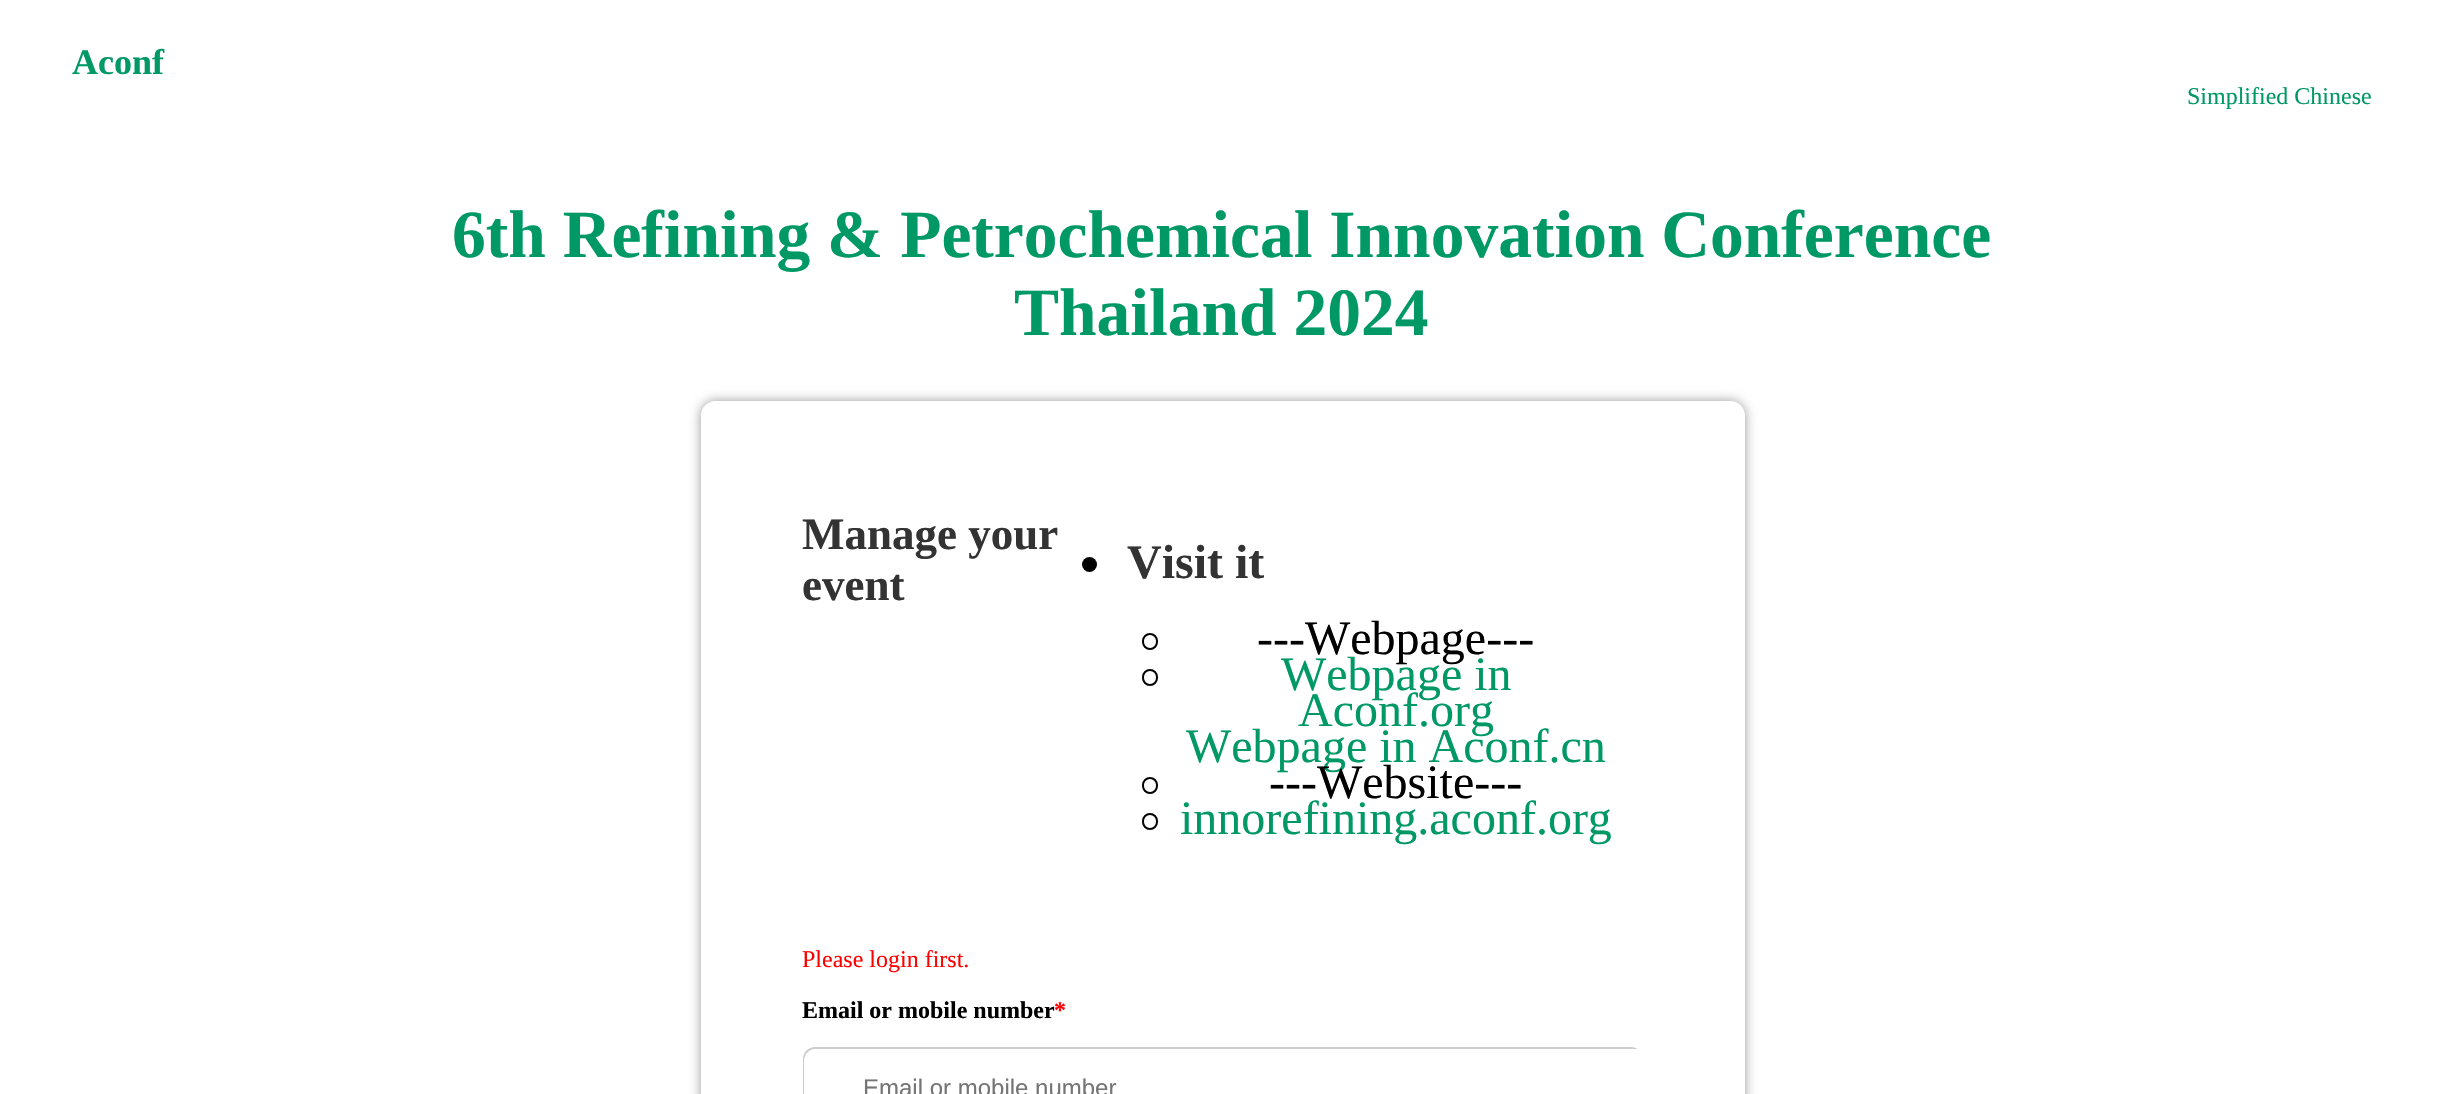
void draw(SkCanvas* canvas) {
  SkPaint paint;
  paint.setAntiAlias(true);
  auto face = [&](const char* family, int weight, float size, bool italic = false) {
    SkFontStyle style(weight, SkFontStyle::kNormal_Width,
      italic ? SkFontStyle::kItalic_Slant : SkFontStyle::kUpright_Slant);
    SkFont result(fontMgr->matchFamilyStyle(family, style), size);
    result.setSubpixel(true);
    return result;
  };
  auto shape = [&](const char* data, bool evenOdd = false) {
    SkPath result = *SkParsePath::FromSVGString(data);
    if (evenOdd) result.setFillType(SkPathFillType::kEvenOdd);
    return result;
  };
  canvas->clear(0xffffffff);
  canvas->save();
  canvas->clipPath(shape("M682 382H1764V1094H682ZM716 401H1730C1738.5 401 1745 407.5 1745 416V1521C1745 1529.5 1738.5 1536 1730 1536H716C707.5 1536 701 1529.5 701 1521V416C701 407.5 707.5 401 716 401Z", true), true);
  paint.setColor(0xff999999);
  paint.setMaskFilter(SkMaskFilter::MakeBlur(kNormal_SkBlurStyle, 6));
  canvas->drawRoundRect(SkRect::MakeXYWH(701, 401, 1044, 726), 15, 15, paint);
  paint.setMaskFilter(nullptr);
  canvas->restore();
  paint.setColor(0x73ffffff);
  canvas->drawRoundRect(SkRect::MakeXYWH(701, 401, 1044, 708), 15, 15, paint);
  paint.setColor(0xff000000);
  canvas->drawCircle(1089.5f, 564.5f, 7.5f, paint);
  paint.setStroke(true);
  paint.setStrokeWidth(2);
  canvas->drawRoundRect(SkRect::MakeXYWH(1143, 634, 14, 15), 7, 7, paint);
  canvas->drawRoundRect(SkRect::MakeXYWH(1143, 670, 14, 15), 7, 7, paint);
  canvas->drawRoundRect(SkRect::MakeXYWH(1143, 778, 14, 15), 7, 7, paint);
  canvas->drawRoundRect(SkRect::MakeXYWH(1143, 814, 14, 15), 7, 7, paint);
  paint.setColor(0xffcccccc);
  canvas->drawRoundRect(SkRect::MakeXYWH(804, 1048, 838, 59), 11, 11, paint);
  paint.setStroke(false);
  paint.setColor(0xffffffff);
  canvas->drawRoundRect(SkRect::MakeXYWH(804, 1049, 900, 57), 12, 12, paint);
  paint.setColor(0xd9ffffff);
  canvas->drawRect(SkRect::MakeXYWH(804, 1059, 1, 1), paint);
  auto f0 = face("Liberation Serif", 700, 36);
  paint.setColor(0xff009966);
  canvas->drawString("Aconf", 72, 74, f0, paint);
  auto f1 = face("Liberation Serif", 400, 24);
  canvas->drawString("Simplified Chinese", 2187, 104, f1, paint);
  auto f2 = face("Liberation Serif", 700, 67.5f);
  canvas->drawString("6th Refining & Petrochemical Innovation Conference", 452, 257, f2, paint);
  canvas->drawString("Thailand 2024", 1014, 335, f2, paint);
  auto f3 = face("Liberation Serif", 700, 45);
  paint.setColor(0xff333333);
  canvas->drawString("Manage your", 802, 549, f3, paint);
  canvas->drawString("event", 802, 600, f3, paint);
  auto f4 = face("Liberation Serif", 700, 48);
  canvas->drawString("Visit it", 1127, 578, f4, paint);
  auto f5 = face("Liberation Serif", 400, 48);
  paint.setColor(0xff000000);
  canvas->drawString("---Webpage---", 1257, 654, f5, paint);
  paint.setColor(0xff009966);
  {
    const struct { const char* s; float x, y; } items[] = {
      {"Webpage in", 1281, 690},
      {"Aconf.org", 1298, 726},
      {"Webpage in Aconf.cn", 1186, 762},
    };
    for (auto [s, x, y] : items) {
      canvas->drawString(s, x, y, f5, paint);
    }
  }
  paint.setColor(0xff000000);
  canvas->drawString("---Website---", 1269, 798, f5, paint);
  paint.setColor(0xff009966);
  canvas->drawString("innorefining.aconf.org", 1180, 834, f5, paint);
  paint.setColor(0xffff0000);
  canvas->drawString("Please login first.", 802, 967, f1, paint);
  auto f6 = face("Liberation Serif", 700, 24);
  paint.setColor(0xff000000);
  canvas->drawString("Email or mobile number", 802, 1018, f6, paint);
  paint.setColor(0xffff0000);
  canvas->drawString("*", 1054, 1018, f6, paint);
  auto f7 = face("Liberation Sans", 400, 24);
  paint.setColor(0xff757575);
  canvas->drawString("Email or mobile number", 863, 1096, f7, paint);
}
